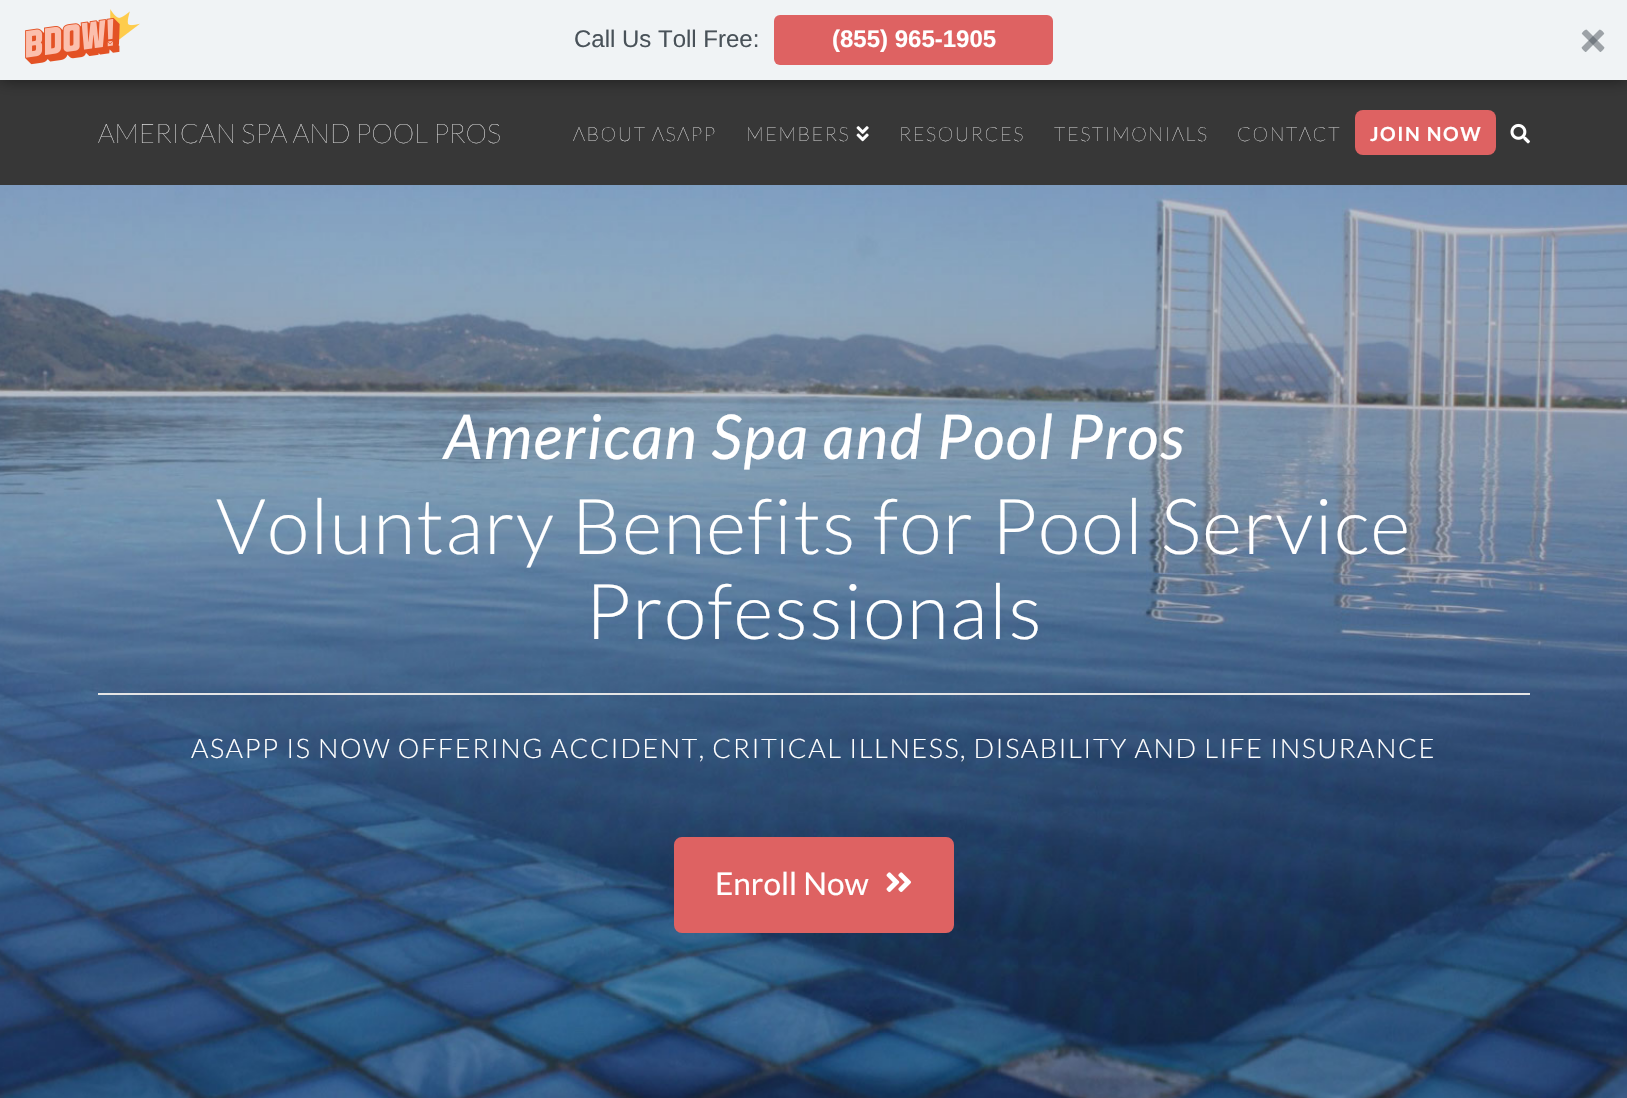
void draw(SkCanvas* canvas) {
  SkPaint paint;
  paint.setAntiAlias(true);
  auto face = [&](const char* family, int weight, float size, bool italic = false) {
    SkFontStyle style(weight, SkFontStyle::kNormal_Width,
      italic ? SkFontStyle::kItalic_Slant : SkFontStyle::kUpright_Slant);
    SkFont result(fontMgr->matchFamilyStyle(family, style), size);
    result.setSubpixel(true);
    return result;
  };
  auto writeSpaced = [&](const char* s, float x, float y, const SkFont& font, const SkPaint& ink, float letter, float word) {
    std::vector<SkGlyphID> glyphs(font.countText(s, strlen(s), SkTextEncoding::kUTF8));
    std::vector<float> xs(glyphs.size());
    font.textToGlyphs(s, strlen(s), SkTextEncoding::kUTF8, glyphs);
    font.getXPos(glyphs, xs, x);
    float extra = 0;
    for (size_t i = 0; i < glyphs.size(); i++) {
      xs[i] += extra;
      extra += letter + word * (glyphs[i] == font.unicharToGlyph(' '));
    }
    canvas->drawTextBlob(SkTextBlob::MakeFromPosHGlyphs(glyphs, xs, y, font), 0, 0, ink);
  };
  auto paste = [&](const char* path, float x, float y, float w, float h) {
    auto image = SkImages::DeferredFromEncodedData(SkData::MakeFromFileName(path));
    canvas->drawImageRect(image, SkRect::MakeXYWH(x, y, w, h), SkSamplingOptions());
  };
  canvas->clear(0xffffffff);
  paint.setColor(0xff373737);
  canvas->drawRect(SkRect::MakeXYWH(0, 80, 1627, 105), paint);
  paint.setColor(0x80000000);
  paint.setMaskFilter(SkMaskFilter::MakeBlur(kNormal_SkBlurStyle, 7.5f));
  canvas->drawRect(SkRect::MakeXYWH(0, 0, 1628, 80), paint);
  paint.setMaskFilter(nullptr);
  paint.setColor(0xfff0f3f5);
  canvas->drawRect(SkRect::MakeXYWH(0, 0, 1627, 80), paint);
  paste("img/1.png", 25, 9, 115, 56);
  paint.setColor(0xffde6262);
  canvas->drawRoundRect(SkRect::MakeXYWH(774, 15, 279, 50), 6, 6, paint);
  paste("img/2.png", 1581, 29, 24, 23);
  paste("img/3.png", 856, 126, 13, 16);
  canvas->drawRoundRect(SkRect::MakeXYWH(1355, 110, 141, 45), 8, 8, paint);
  paste("img/4.png", 1510, 123, 20, 21);
  paste("img/5.png", 0, 185, 1627, 913);
  paint.setColor(0xffe5e5e5);
  canvas->drawRect(SkRect::MakeXYWH(98, 693, 1432, 2), paint);
  paint.setColor(0xffde6262);
  canvas->drawRoundRect(SkRect::MakeXYWH(675, 838, 278, 94), 7, 7, paint);
  paint.setStroke(true);
  paint.setStrokeWidth(2);
  canvas->drawRoundRect(SkRect::MakeXYWH(675, 838, 278, 94), 7, 7, paint);
  paste("img/6.png", 886, 872, 25, 20);
  auto f0 = face("Liberation Sans", 400, 24);
  paint.setStroke(false);
  paint.setColor(0xff495259);
  canvas->drawString("Call Us Toll Free:", 574, 47, f0, paint);
  auto f1 = face("Liberation Sans", 700, 24);
  paint.setColor(0xffffffff);
  canvas->drawString("(855) 965-1905", 832, 47, f1, paint);
  auto f2 = face("Lato", 100, 27);
  canvas->drawString("AMERICAN SPA AND POOL PROS", 98, 143, f2, paint);
  auto f3 = face("Lato", 100, 19.5f);
  {
    const struct { const char* s; float x, y; } items[] = {
      {"ABOUT ASAPP", 573, 141},
      {"MEMBERS", 746, 141},
      {"RESOURCES", 899, 141},
      {"TESTIMONIALS", 1054, 141},
      {"CONTACT", 1237, 141},
    };
    for (auto [s, x, y] : items) {
      writeSpaced(s, x, y, f3, paint, 1.6f, 0);
    }
  }
  auto f4 = face("Lato", 700, 19.5f);
  writeSpaced("JOIN NOW", 1370, 141, f4, paint, 1.6f, 0);
  auto f5 = face("Lato", 400, 61.75f, true);
  writeSpaced("American Spa and Pool Pros", 444, 459, f5, paint, 1.5f, 0);
  auto f6 = face("Lato", 300, 77.1f);
  writeSpaced("Voluntary Benefits for Pool Service", 216, 554, f6, paint, 1.45f, 0);
  writeSpaced("Professionals", 585, 639, f6, paint, 1.45f, 0);
  auto f7 = face("Lato", 300, 27);
  writeSpaced("ASAPP IS NOW OFFERING ACCIDENT, CRITICAL ILLNESS, DISABILITY AND LIFE INSURANCE", 191, 758, f7, paint, 1.5f, 0);
  auto f8 = face("Lato", 400, 31.5f);
  canvas->drawString("Enroll Now", 715, 895, f8, paint);
}
